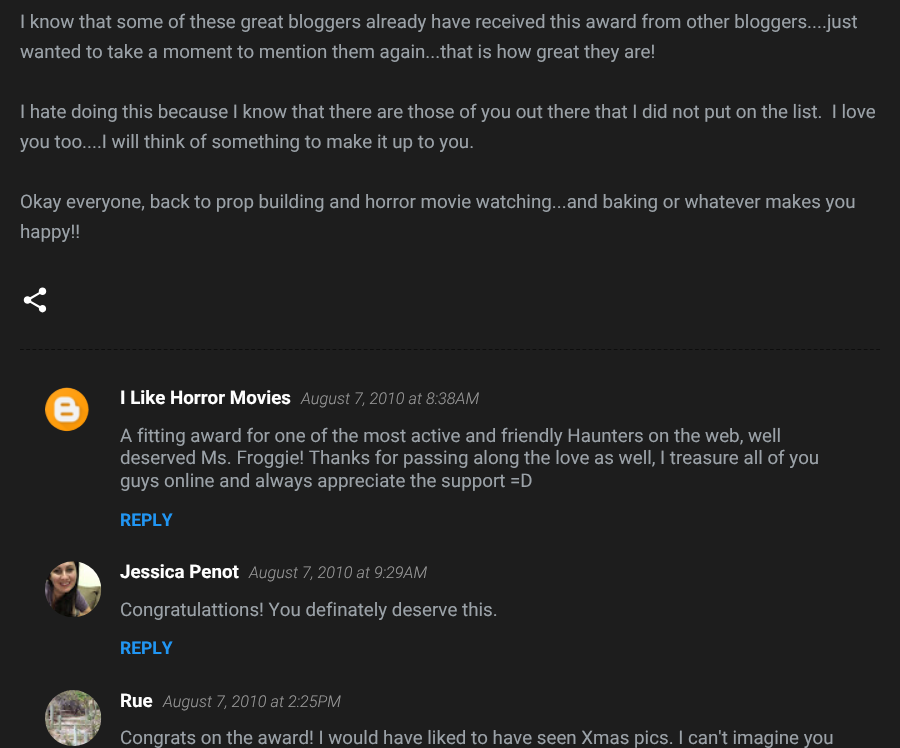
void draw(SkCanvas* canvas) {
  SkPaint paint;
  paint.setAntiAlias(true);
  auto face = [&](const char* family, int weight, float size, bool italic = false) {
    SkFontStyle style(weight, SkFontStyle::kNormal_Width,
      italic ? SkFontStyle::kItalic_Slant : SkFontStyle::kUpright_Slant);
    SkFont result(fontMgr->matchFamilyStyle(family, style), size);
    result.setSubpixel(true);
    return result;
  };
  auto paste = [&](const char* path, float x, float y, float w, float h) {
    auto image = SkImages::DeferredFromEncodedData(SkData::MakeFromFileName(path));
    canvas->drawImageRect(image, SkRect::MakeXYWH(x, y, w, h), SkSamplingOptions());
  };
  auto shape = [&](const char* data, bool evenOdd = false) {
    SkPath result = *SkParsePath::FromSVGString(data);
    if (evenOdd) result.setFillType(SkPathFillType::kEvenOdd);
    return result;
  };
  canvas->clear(0xff1d1d1d);
  paste("img/1.png", 23, 287, 24, 26);
  paint.setStroke(true);
  paint.setStrokeWidth(1.2f);
  paint.setColor(0xff0d0d0d);
  paint.setPathEffect(SkDashPathEffect::Make({{3.75f, 2.5f}}, 0));
  canvas->drawPath(shape("M20 349.5H880"), paint);
  paint.setPathEffect(nullptr);
  paste("img/2.png", 45, 387, 44, 45);
  paste("img/3.png", 45, 561, 57, 56);
  paste("img/4.png", 45, 690, 57, 57);
  auto f0 = face("Roboto", 400, 18.75f);
  paint.setStroke(false);
  paint.setColor(0xff9ba2a8);
  {
    const struct { const char* s; float x, y; } items[] = {
      {"I know that some of these great bloggers already have received this award from other bloggers....just", 20, 28},
      {"wanted to take a moment to mention them again...that is how great they are!", 20, 58},
      {"I hate doing this because I know that there are those of you out there that I did not put on the list.  I love", 20, 118},
      {"you too....I will think of something to make it up to you.", 20, 148},
      {"Okay everyone, back to prop building and horror movie watching...and baking or whatever makes you", 20, 208},
      {"happy!!", 20, 238},
    };
    for (auto [s, x, y] : items) {
      canvas->drawString(s, x, y, f0, paint);
    }
  }
  auto f1 = face("Roboto", 700, 18.75f);
  paint.setColor(0xffffffff);
  canvas->drawString("I Like Horror Movies", 120, 404, f1, paint);
  auto f2 = face("Roboto", 300, 16.25f, true);
  paint.setColor(0xff979797);
  canvas->drawString("August 7, 2010 at 8:38 AM", 301, 404, f2, paint);
  paint.setColor(0xff9ba2a8);
  {
    const struct { const char* s; float x, y; } items[] = {
      {"A fitting award for one of the most active and friendly Haunters on the web, well", 120, 442},
      {"deserved Ms. Froggie! Thanks for passing along the love as well, I treasure all of you", 120, 464},
      {"guys online and always appreciate the support =D", 120, 487},
    };
    for (auto [s, x, y] : items) {
      canvas->drawString(s, x, y, f0, paint);
    }
  }
  auto f3 = face("Roboto", 700, 17.5f);
  paint.setColor(0xff2196f3);
  canvas->drawString("REPLY", 120, 526, f3, paint);
  paint.setColor(0xffffffff);
  canvas->drawString("Jessica Penot", 120, 578, f1, paint);
  paint.setColor(0xff979797);
  canvas->drawString("August 7, 2010 at 9:29 AM", 249, 578, f2, paint);
  paint.setColor(0xff9ba2a8);
  canvas->drawString("Congratulattions! You definately deserve this.", 120, 616, f0, paint);
  paint.setColor(0xff2196f3);
  canvas->drawString("REPLY", 120, 654, f3, paint);
  paint.setColor(0xffffffff);
  canvas->drawString("Rue", 120, 707, f1, paint);
  paint.setColor(0xff979797);
  canvas->drawString("August 7, 2010 at 2:25 PM", 163, 707, f2, paint);
  paint.setColor(0xff9ba2a8);
  canvas->drawString("Congrats on the award! I would have liked to have seen Xmas pics. I can't imagine you", 120, 744, f0, paint);
}
